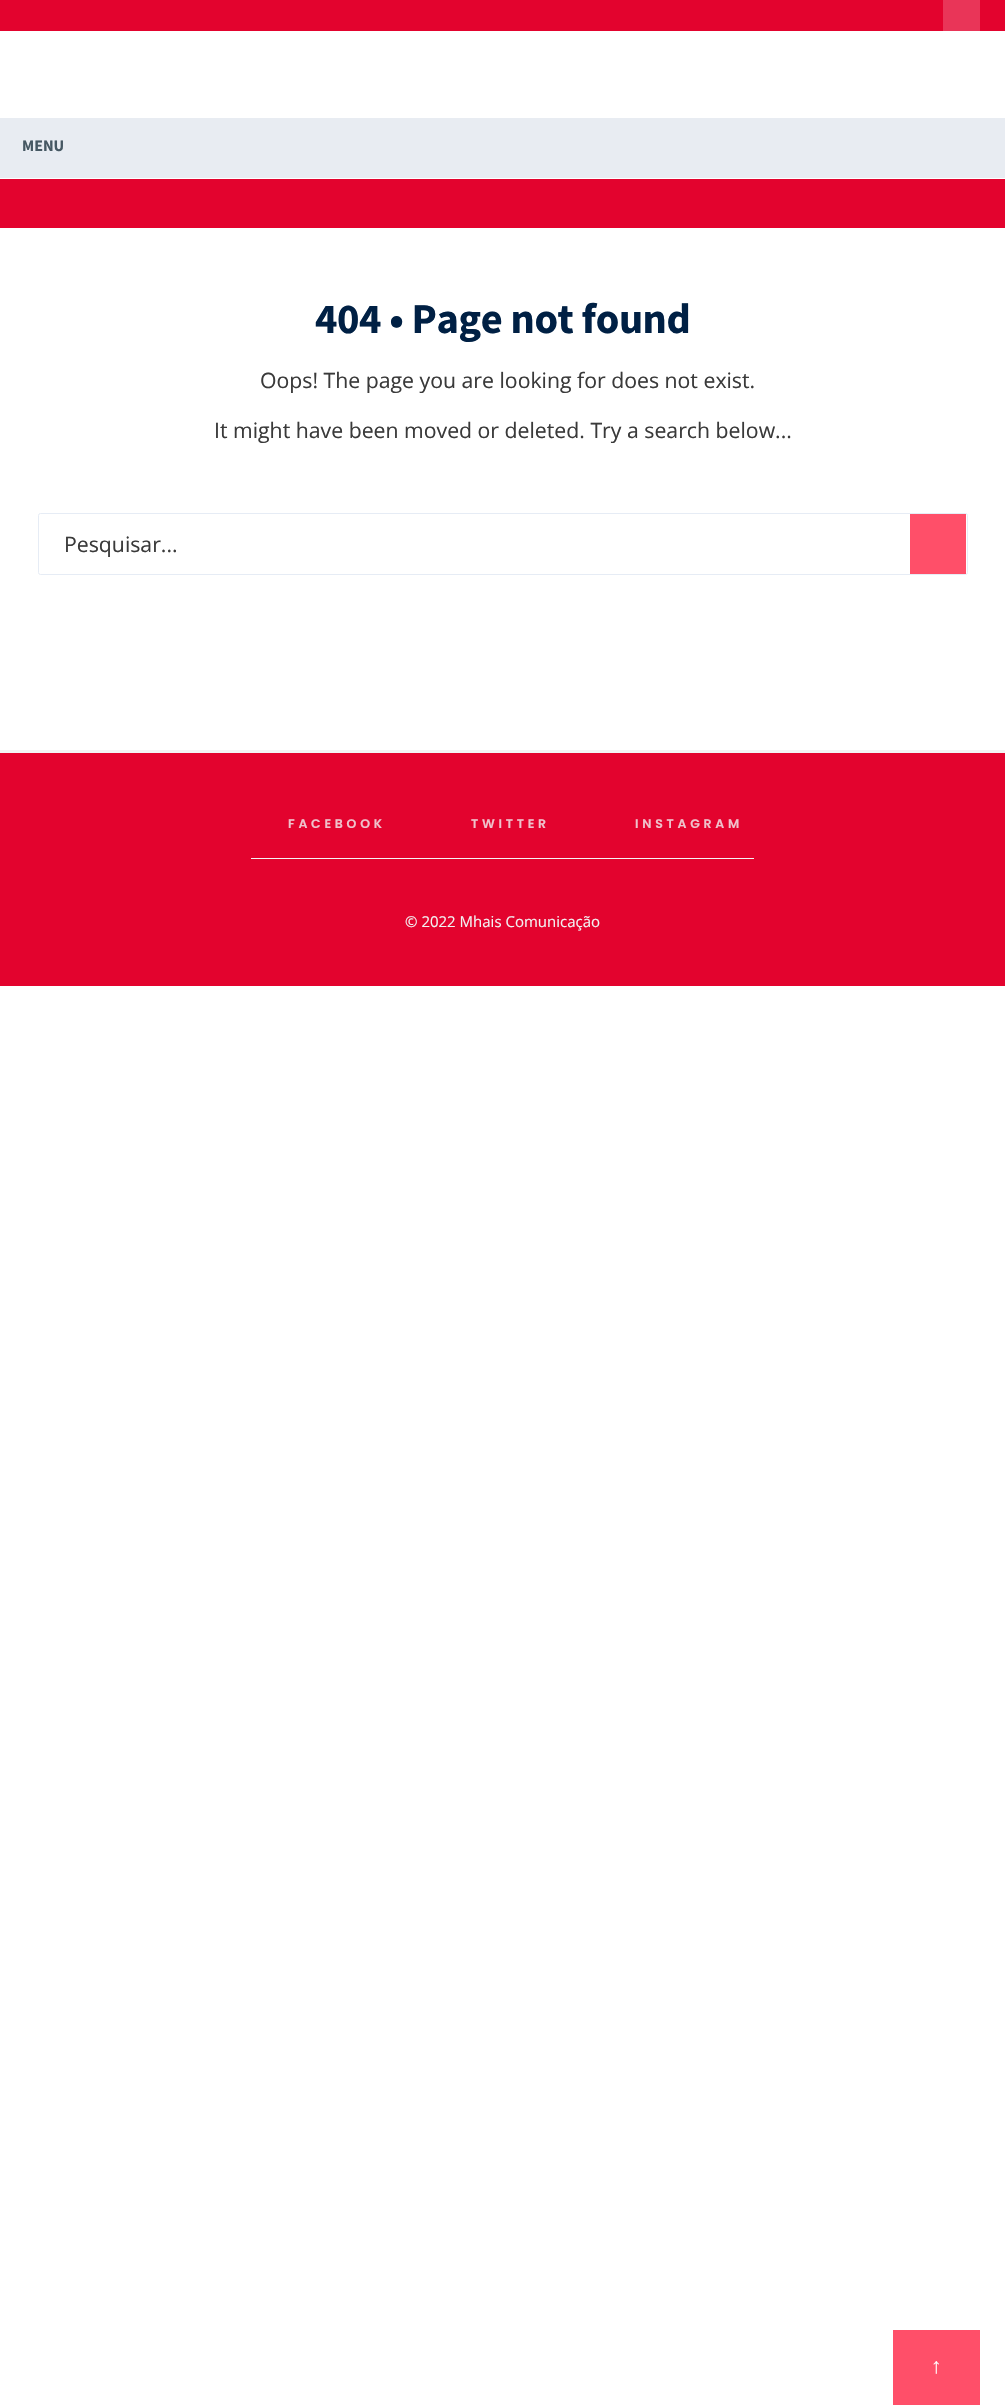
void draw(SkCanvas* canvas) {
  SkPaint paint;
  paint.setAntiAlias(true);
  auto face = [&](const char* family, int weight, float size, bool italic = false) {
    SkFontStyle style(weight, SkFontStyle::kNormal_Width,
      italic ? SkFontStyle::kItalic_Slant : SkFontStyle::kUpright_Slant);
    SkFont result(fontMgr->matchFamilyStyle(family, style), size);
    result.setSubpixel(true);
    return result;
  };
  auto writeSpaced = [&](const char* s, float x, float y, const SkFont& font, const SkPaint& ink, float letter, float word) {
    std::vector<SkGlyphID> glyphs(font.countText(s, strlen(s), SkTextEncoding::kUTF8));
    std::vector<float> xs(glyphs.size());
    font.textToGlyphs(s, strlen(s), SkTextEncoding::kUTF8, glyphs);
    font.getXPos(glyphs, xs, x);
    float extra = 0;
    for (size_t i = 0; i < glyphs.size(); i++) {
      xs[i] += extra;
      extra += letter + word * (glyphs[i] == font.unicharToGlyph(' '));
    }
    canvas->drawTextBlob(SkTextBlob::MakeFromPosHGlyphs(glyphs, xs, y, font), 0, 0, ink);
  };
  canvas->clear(0xffffffff);
  {
    const struct { float x, y, w, h; SkColor color; } items[] = {
      {0, 0, 1005, 31, 0xffe3032e},
      {943, 0, 37, 31, 0xffe93558},
      {0, 179, 1005, 49, 0xffe3032e},
      {0, 118, 1005, 60, 0xffe8ecf2},
    };
    for (auto [x, y, w, h, color] : items) {
      paint.setColor(color);
      canvas->drawRect(SkRect::MakeXYWH(x, y, w, h), paint);
    }
  }
  paint.setStroke(true);
  paint.setStrokeWidth(1);
  paint.setColor(0xffe6ecf5);
  canvas->drawRoundRect(SkRect::MakeXYWH(38.5f, 513.5f, 929, 61), 2, 2, paint);
  paint.setStroke(false);
  {
    const struct { float x, y, w, h; SkColor color; } items[] = {
      {910, 514, 56, 60, 0xffff4f69},
      {0, 750, 1005, 3, 0xfff3f3f3},
      {0, 753, 1005, 233, 0xffe3032e},
      {251, 858, 503, 1, 0xfff3f3f3},
      {893, 2330, 87, 75, 0xffff4f69},
    };
    for (auto [x, y, w, h, color] : items) {
      paint.setColor(color);
      canvas->drawRect(SkRect::MakeXYWH(x, y, w, h), paint);
    }
  }
  auto f0 = face("Source Sans Pro", 700, 16);
  paint.setColor(0xff465863);
  canvas->drawString("MENU", 22, 151, f0, paint);
  auto f1 = face("Source Sans Pro", 700, 42.5f);
  paint.setColor(0xff002044);
  writeSpaced("404 • Page not found", 315, 333, f1, paint, -0.4f, 0);
  auto f2 = face("Open Sans", 400, 21.25f);
  paint.setColor(0xff3a3a3a);
  {
    const struct { const char* s; float x, y; } items[] = {
      {"Oops! The page you are looking for does not exist.", 260, 388},
      {"It might have been moved or deleted. Try a search below...", 214, 438},
      {"Pesquisar...", 64, 552},
    };
    for (auto [s, x, y] : items) {
      canvas->drawString(s, x, y, f2, paint);
    }
  }
  auto f3 = face("Poppins", 600, 12.5f);
  paint.setColor(0xffefc2cb);
  {
    const struct { const char* s; float x, y; } items[] = {
      {"FACEBOOK", 288, 828},
      {"TWITTER", 471, 828},
      {"INSTAGRAM", 635, 828},
    };
    for (auto [s, x, y] : items) {
      writeSpaced(s, x, y, f3, paint, 3.75f, 0);
    }
  }
  auto f4 = face("Open Sans", 400, 15);
  paint.setColor(0xfff2f2f2);
  canvas->drawString("© 2022 Mhais Comunicação", 405, 927, f4, paint);
  auto f5 = face("Liberation Serif", 400, 21.25f);
  paint.setColor(0xffffffff);
  canvas->drawString("↑", 931, 2373, f5, paint);
}
